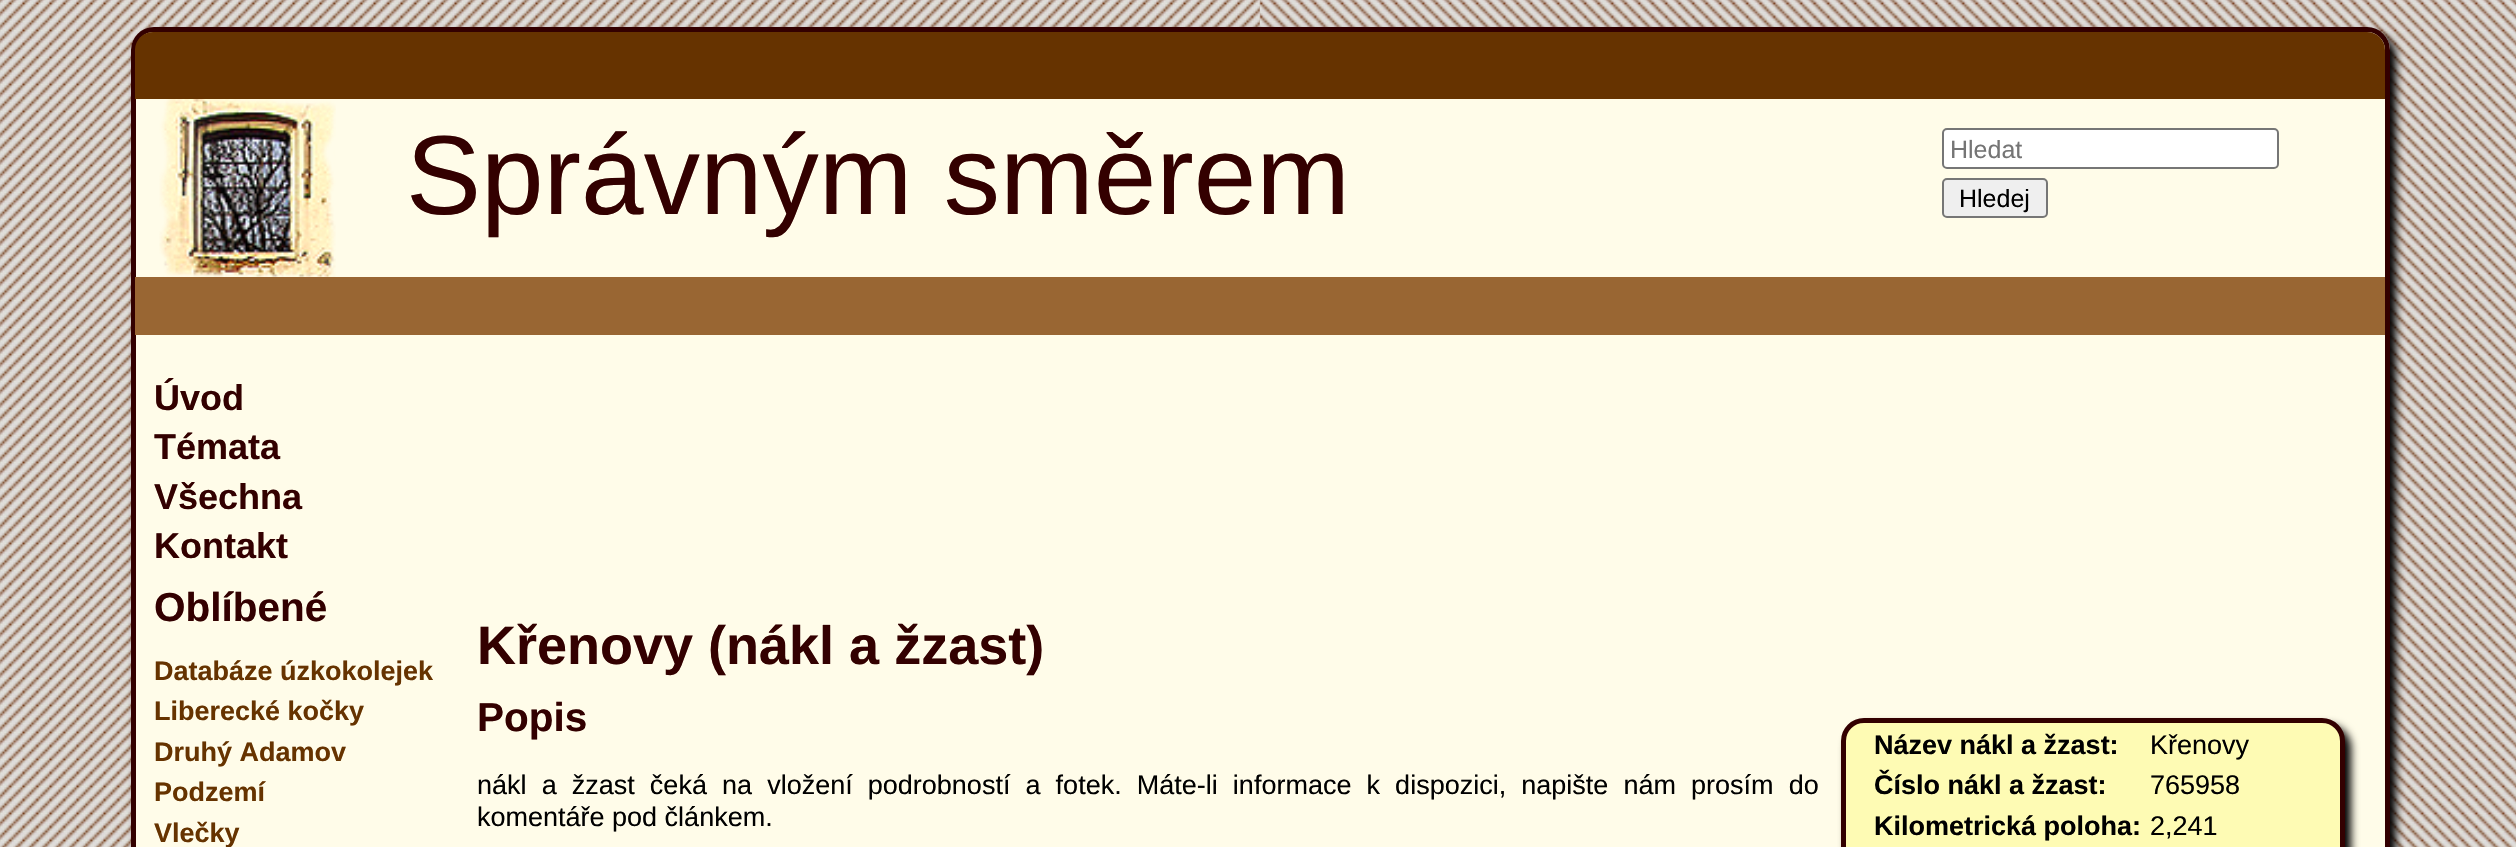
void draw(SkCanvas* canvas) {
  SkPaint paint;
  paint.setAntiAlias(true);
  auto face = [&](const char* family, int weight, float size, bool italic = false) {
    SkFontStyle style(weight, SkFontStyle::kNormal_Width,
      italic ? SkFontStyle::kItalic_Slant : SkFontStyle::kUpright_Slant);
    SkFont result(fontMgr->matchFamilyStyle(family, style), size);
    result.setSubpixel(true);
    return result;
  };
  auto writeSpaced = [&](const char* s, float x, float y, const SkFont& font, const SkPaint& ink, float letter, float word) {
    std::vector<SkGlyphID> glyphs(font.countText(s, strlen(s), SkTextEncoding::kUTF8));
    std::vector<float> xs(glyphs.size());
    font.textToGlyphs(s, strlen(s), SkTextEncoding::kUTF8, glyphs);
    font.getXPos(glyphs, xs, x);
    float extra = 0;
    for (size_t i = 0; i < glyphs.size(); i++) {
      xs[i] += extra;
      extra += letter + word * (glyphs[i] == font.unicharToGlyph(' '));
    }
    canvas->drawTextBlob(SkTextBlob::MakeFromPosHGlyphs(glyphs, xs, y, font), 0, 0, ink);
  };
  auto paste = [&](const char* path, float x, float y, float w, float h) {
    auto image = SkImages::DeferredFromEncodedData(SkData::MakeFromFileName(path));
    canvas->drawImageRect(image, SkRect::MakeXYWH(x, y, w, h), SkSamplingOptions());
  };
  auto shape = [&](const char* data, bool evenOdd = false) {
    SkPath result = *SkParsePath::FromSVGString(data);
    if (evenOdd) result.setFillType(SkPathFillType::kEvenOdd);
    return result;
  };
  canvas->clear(0xffffffff);
  paste("img/1.png", 0, 0, 1259, 847);
  paste("img/2.png", 1260, 0, 1256, 847);
  paste("img/3.png", 1259, 0, 1, 27);
  paste("img/4.png", 1259, 0, 2, 27);
  paint.setColor(0xff000000);
  paint.setMaskFilter(SkMaskFilter::MakeBlur(kNormal_SkBlurStyle, 4.5f));
  canvas->drawRoundRect(SkRect::MakeXYWH(137, 34, 2259, 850), 23, 23, paint);
  paint.setMaskFilter(nullptr);
  canvas->save();
  canvas->clipPath(shape("M154 27H2367C2379.5 27 2390 37.5 2390 50V3024C2390 3036.5 2379.5 3047 2367 3047H154C141.5 3047 131 3036.5 131 3024V50C131 37.5 141.5 27 154 27Z"), true);
  {
    const SkColor colors[] = {0xffe1c590, 0xfffffce9};
    const float stops[] = {0, 0.61f};
    const SkPoint ends[] = {{135, 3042}, {135, 32}};
    paint.setShader(SkGradientShader::MakeLinear(ends, colors, stops, 2, SkTileMode::kClamp));
    paint.setAlpha(255);
  }
  canvas->drawRect(SkRect::MakeXYWH(131, 32, 2259, 815), paint);
  canvas->restore();
  paint.setStroke(true);
  paint.setStrokeWidth(5);
  paint.setShader(nullptr);
  paint.setColor(0xff330000);
  canvas->drawRoundRect(SkRect::MakeXYWH(133.5f, 29.5f, 2254, 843), 20.5f, 20.5f, paint);
  paint.setStroke(false);
  paint.setColor(0xff663300);
  canvas->drawPath(shape("M153 32H2367C2377 32 2385 40 2385 50V99H135V50C135 40 143 32 153 32Z"), paint);
  paste("img/5.png", 159, 99, 177, 178);
  paint.setColor(0xff996633);
  canvas->drawRect(SkRect::MakeXYWH(135, 277, 2250, 58), paint);
  paint.setColor(0xffffffff);
  canvas->drawRoundRect(SkRect::MakeXYWH(1943, 129, 335, 39), 4, 4, paint);
  paint.setStroke(true);
  paint.setStrokeWidth(2);
  paint.setColor(0xff767676);
  canvas->drawRoundRect(SkRect::MakeXYWH(1943, 129, 335, 39), 4, 4, paint);
  paint.setStroke(false);
  paint.setColor(0xffefefef);
  canvas->drawRoundRect(SkRect::MakeXYWH(1943, 179, 104, 38), 4, 4, paint);
  paint.setStroke(true);
  paint.setColor(0xff767676);
  canvas->drawRoundRect(SkRect::MakeXYWH(1943, 179, 104, 38), 4, 4, paint);
  paint.setStroke(false);
  paint.setColor(0xff000000);
  paint.setMaskFilter(SkMaskFilter::MakeBlur(kNormal_SkBlurStyle, 4.5f));
  canvas->drawRoundRect(SkRect::MakeXYWH(1847, 725, 504, 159), 23, 23, paint);
  paint.setMaskFilter(nullptr);
  paint.setColor(0xfffefbb4);
  canvas->drawRoundRect(SkRect::MakeXYWH(1843.5f, 720.5f, 499, 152), 20.5f, 20.5f, paint);
  paint.setStroke(true);
  paint.setStrokeWidth(5);
  paint.setColor(0xff330000);
  canvas->drawRoundRect(SkRect::MakeXYWH(1843.5f, 720.5f, 499, 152), 20.5f, 20.5f, paint);
  auto f0 = face("Liberation Sans", 400, 112.5f);
  paint.setStroke(false);
  canvas->drawString("Správným směrem", 406, 214, f0, paint);
  auto f1 = face("Liberation Sans", 400, 25);
  paint.setColor(0xff757575);
  canvas->drawString("Hledat", 1950, 158, f1, paint);
  paint.setColor(0xff000000);
  canvas->drawString("Hledej", 1959, 207, f1, paint);
  auto f2 = face("Liberation Sans", 700, 36);
  paint.setColor(0xff330000);
  {
    const struct { const char* s; float x, y; } items[] = {
      {"Úvod", 154, 410},
      {"Témata", 154, 459},
      {"Všechna", 154, 509},
      {"Kontakt", 154, 558},
    };
    for (auto [s, x, y] : items) {
      canvas->drawString(s, x, y, f2, paint);
    }
  }
  auto f3 = face("Liberation Sans", 700, 40.5f);
  canvas->drawString("Oblíbené", 154, 621, f3, paint);
  auto f4 = face("Liberation Sans", 700, 27);
  paint.setColor(0xff663300);
  {
    const struct { const char* s; float x, y; } items[] = {
      {"Databáze úzkokolejek", 154, 680},
      {"Liberecké kočky", 154, 720},
      {"Druhý Adamov", 154, 761},
      {"Podzemí", 154, 801},
      {"Vlečky", 154, 842},
    };
    for (auto [s, x, y] : items) {
      canvas->drawString(s, x, y, f4, paint);
    }
  }
  auto f5 = face("Liberation Sans", 700, 54);
  paint.setColor(0xff330000);
  canvas->drawString("Křenovy (nákl a žzast)", 477, 664, f5, paint);
  canvas->drawString("Popis", 477, 731, f3, paint);
  auto f6 = face("Liberation Sans", 400, 27);
  paint.setColor(0xff000000);
  writeSpaced("nákl a žzast čeká na vložení podrobností a fotek. Máte-li informace k dispozici, napište nám prosím do", 477, 794, f6, paint, 0, 7.6f);
  canvas->drawString("komentáře pod článkem.", 477, 826, f6, paint);
  canvas->drawString("Název nákl a žzast:", 1874, 754, f4, paint);
  canvas->drawString("Křenovy", 2150, 754, f6, paint);
  canvas->drawString("Číslo nákl a žzast:", 1874, 794, f4, paint);
  canvas->drawString("765958", 2150, 794, f6, paint);
  canvas->drawString("Kilometrická poloha:", 1874, 835, f4, paint);
  canvas->drawString("2,241", 2150, 835, f6, paint);
}
